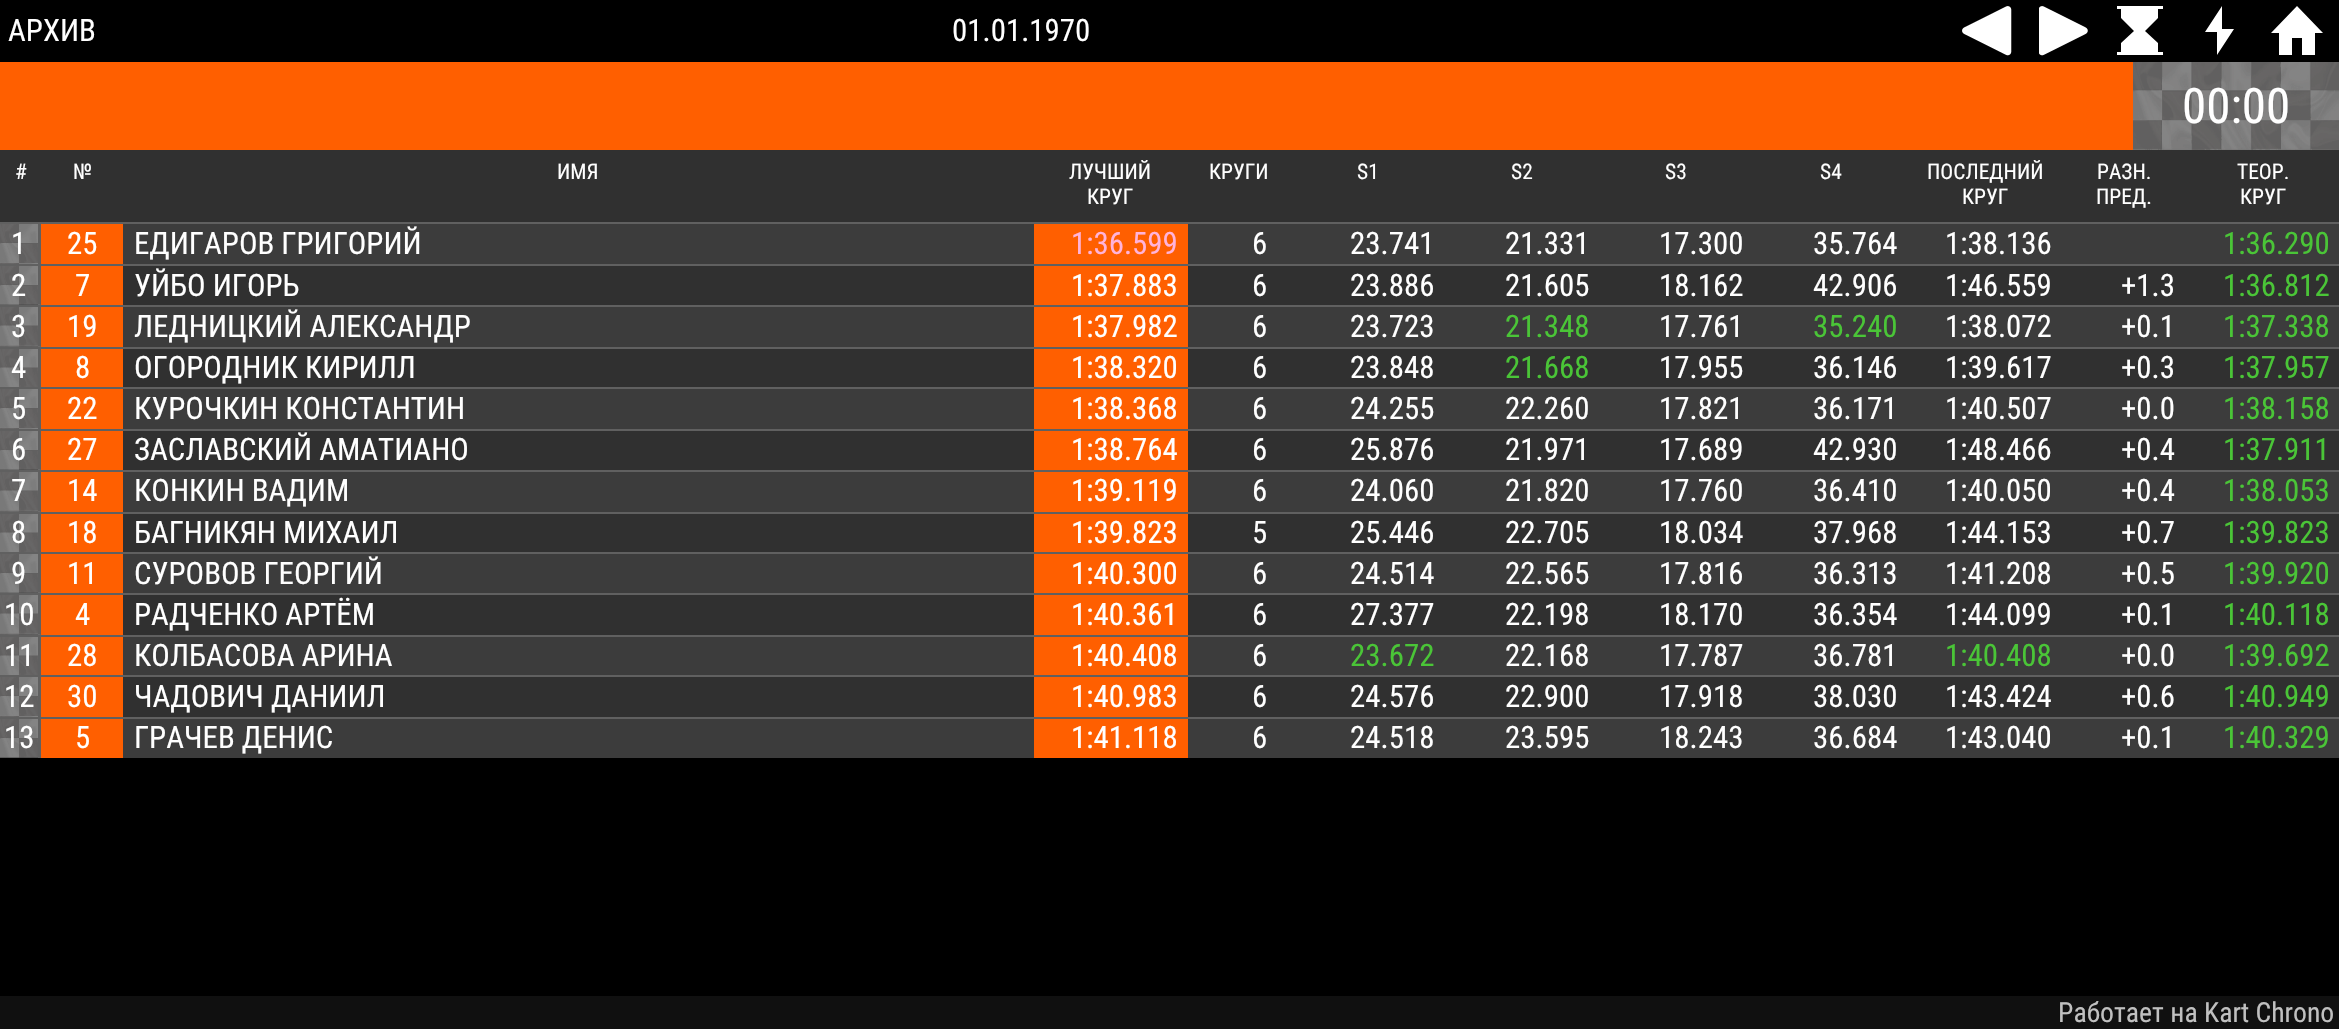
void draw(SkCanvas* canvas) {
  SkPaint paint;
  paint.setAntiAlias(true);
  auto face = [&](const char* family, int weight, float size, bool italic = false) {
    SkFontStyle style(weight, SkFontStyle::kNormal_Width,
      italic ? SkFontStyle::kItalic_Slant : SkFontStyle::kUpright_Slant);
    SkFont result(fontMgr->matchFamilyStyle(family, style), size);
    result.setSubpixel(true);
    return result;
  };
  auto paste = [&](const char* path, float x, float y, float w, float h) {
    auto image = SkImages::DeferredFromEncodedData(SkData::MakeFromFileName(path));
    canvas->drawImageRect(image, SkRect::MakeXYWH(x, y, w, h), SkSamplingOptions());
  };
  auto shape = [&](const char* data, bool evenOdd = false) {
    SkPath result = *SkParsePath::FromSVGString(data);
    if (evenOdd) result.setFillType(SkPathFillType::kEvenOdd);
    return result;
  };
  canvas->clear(0xff000000);
  paste("img/1.png", 1962, 6, 50, 50);
  paste("img/2.png", 2039, 6, 49, 50);
  canvas->save();
  canvas->clipRect(SkRect::MakeXYWH(2117, 6, 46, 50));
  paint.setColor(0xffffffff);
  canvas->drawPath(shape("M2158 9H2163V6H2116V9H2121V18L2134 31L2121 43V52H2117V55H2163V52H2158V43L2145 31L2158 18Z"), paint);
  canvas->restore();
  canvas->drawPath(shape("M2234 29H2222V6L2205 32H2217V55ZM2234 29H2234"), paint);
  canvas->drawPath(shape("M2292 55V38H2302V55H2315V33H2323L2297 6L2271 33H2279V55Z"), paint);
  paint.setColor(0xffff5f00);
  canvas->drawRect(SkRect::MakeXYWH(0, 62, 2133, 88), paint);
  paste("img/3.png", 2133, 62, 206, 88);
  paint.setColor(0xff303030);
  canvas->drawRect(SkRect::MakeXYWH(0, 150, 2339, 72), paint);
  paint.setColor(0xff3c3c3c);
  canvas->drawRect(SkRect::MakeXYWH(123, 224, 2216, 40), paint);
  paste("img/4.png", 0, 224, 38, 40);
  {
    const struct { float x, y, w, h; SkColor color; } items[] = {
      {0, 222, 123, 2, 0xff606060},
      {38, 222, 3, 42, 0xff606060},
      {41, 224, 82, 40, 0xffff5f00},
      {1034, 224, 154, 40, 0xffff5f00},
      {123, 222, 2216, 2, 0xff606060},
      {0, 266, 2339, 39, 0xff303030},
    };
    for (auto [x, y, w, h, color] : items) {
      paint.setColor(color);
      canvas->drawRect(SkRect::MakeXYWH(x, y, w, h), paint);
    }
  }
  paste("img/5.png", 0, 266, 38, 39);
  {
    const struct { float x, y, w, h; SkColor color; } items[] = {
      {0, 264, 123, 2, 0xff606060},
      {38, 264, 3, 41, 0xff606060},
      {41, 266, 82, 39, 0xffff5f00},
      {1034, 266, 154, 39, 0xffff5f00},
      {123, 264, 2216, 2, 0xff606060},
      {0, 307, 2339, 40, 0xff3c3c3c},
    };
    for (auto [x, y, w, h, color] : items) {
      paint.setColor(color);
      canvas->drawRect(SkRect::MakeXYWH(x, y, w, h), paint);
    }
  }
  paste("img/6.png", 0, 304, 41, 43);
  {
    const struct { float x, y, w, h; SkColor color; } items[] = {
      {0, 305, 123, 2, 0xff606060},
      {38, 305, 3, 42, 0xff606060},
      {41, 307, 82, 40, 0xffff5f00},
      {1034, 307, 154, 40, 0xffff5f00},
      {123, 305, 2216, 2, 0xff606060},
      {123, 349, 2216, 38, 0xff303030},
    };
    for (auto [x, y, w, h, color] : items) {
      paint.setColor(color);
      canvas->drawRect(SkRect::MakeXYWH(x, y, w, h), paint);
    }
  }
  paste("img/7.png", 0, 346, 41, 41);
  {
    const struct { float x, y, w, h; SkColor color; } items[] = {
      {0, 347, 123, 2, 0xff606060},
      {38, 347, 3, 40, 0xff606060},
      {41, 349, 82, 38, 0xffff5f00},
      {1034, 349, 154, 38, 0xffff5f00},
      {123, 347, 2216, 2, 0xff606060},
      {123, 389, 2216, 40, 0xff3c3c3c},
    };
    for (auto [x, y, w, h, color] : items) {
      paint.setColor(color);
      canvas->drawRect(SkRect::MakeXYWH(x, y, w, h), paint);
    }
  }
  paste("img/4.png", 0, 389, 38, 40);
  {
    const struct { float x, y, w, h; SkColor color; } items[] = {
      {0, 387, 123, 2, 0xff606060},
      {38, 387, 3, 42, 0xff606060},
      {41, 389, 82, 40, 0xffff5f00},
      {1034, 389, 154, 40, 0xffff5f00},
      {123, 387, 2216, 2, 0xff606060},
      {0, 431, 2339, 39, 0xff303030},
    };
    for (auto [x, y, w, h, color] : items) {
      paint.setColor(color);
      canvas->drawRect(SkRect::MakeXYWH(x, y, w, h), paint);
    }
  }
  paste("img/5.png", 0, 431, 38, 39);
  {
    const struct { float x, y, w, h; SkColor color; } items[] = {
      {0, 429, 123, 2, 0xff606060},
      {38, 429, 3, 41, 0xff606060},
      {41, 431, 82, 39, 0xffff5f00},
      {1034, 431, 154, 39, 0xffff5f00},
      {123, 429, 2216, 2, 0xff606060},
      {0, 472, 2339, 40, 0xff3c3c3c},
    };
    for (auto [x, y, w, h, color] : items) {
      paint.setColor(color);
      canvas->drawRect(SkRect::MakeXYWH(x, y, w, h), paint);
    }
  }
  paste("img/6.png", 0, 469, 41, 43);
  {
    const struct { float x, y, w, h; SkColor color; } items[] = {
      {0, 470, 123, 2, 0xff606060},
      {38, 470, 3, 42, 0xff606060},
      {41, 472, 82, 40, 0xffff5f00},
      {1034, 472, 154, 40, 0xffff5f00},
      {123, 470, 2216, 2, 0xff606060},
      {123, 514, 2216, 38, 0xff303030},
    };
    for (auto [x, y, w, h, color] : items) {
      paint.setColor(color);
      canvas->drawRect(SkRect::MakeXYWH(x, y, w, h), paint);
    }
  }
  paste("img/7.png", 0, 511, 41, 41);
  {
    const struct { float x, y, w, h; SkColor color; } items[] = {
      {0, 512, 123, 2, 0xff606060},
      {38, 512, 3, 40, 0xff606060},
      {41, 514, 82, 38, 0xffff5f00},
      {1034, 514, 154, 38, 0xffff5f00},
      {123, 512, 2216, 2, 0xff606060},
      {0, 554, 2339, 39, 0xff3c3c3c},
    };
    for (auto [x, y, w, h, color] : items) {
      paint.setColor(color);
      canvas->drawRect(SkRect::MakeXYWH(x, y, w, h), paint);
    }
  }
  paste("img/8.png", 0, 554, 38, 39);
  {
    const struct { float x, y, w, h; SkColor color; } items[] = {
      {0, 552, 123, 2, 0xff606060},
      {38, 552, 3, 41, 0xff606060},
      {41, 554, 82, 39, 0xffff5f00},
      {1034, 554, 154, 39, 0xffff5f00},
      {123, 552, 2216, 2, 0xff606060},
      {0, 595, 2339, 40, 0xff303030},
    };
    for (auto [x, y, w, h, color] : items) {
      paint.setColor(color);
      canvas->drawRect(SkRect::MakeXYWH(x, y, w, h), paint);
    }
  }
  paste("img/9.png", 0, 592, 41, 43);
  {
    const struct { float x, y, w, h; SkColor color; } items[] = {
      {0, 593, 123, 2, 0xff606060},
      {38, 593, 3, 42, 0xff606060},
      {41, 595, 82, 40, 0xffff5f00},
      {1034, 595, 154, 40, 0xffff5f00},
      {123, 593, 2216, 2, 0xff606060},
      {123, 637, 2216, 38, 0xff3c3c3c},
    };
    for (auto [x, y, w, h, color] : items) {
      paint.setColor(color);
      canvas->drawRect(SkRect::MakeXYWH(x, y, w, h), paint);
    }
  }
  paste("img/10.png", 0, 634, 41, 41);
  {
    const struct { float x, y, w, h; SkColor color; } items[] = {
      {0, 635, 123, 2, 0xff606060},
      {38, 635, 3, 40, 0xff606060},
      {41, 637, 82, 38, 0xffff5f00},
      {1034, 637, 154, 38, 0xffff5f00},
      {123, 635, 2216, 2, 0xff606060},
      {123, 677, 2216, 40, 0xff303030},
    };
    for (auto [x, y, w, h, color] : items) {
      paint.setColor(color);
      canvas->drawRect(SkRect::MakeXYWH(x, y, w, h), paint);
    }
  }
  paste("img/4.png", 0, 677, 38, 40);
  {
    const struct { float x, y, w, h; SkColor color; } items[] = {
      {0, 675, 123, 2, 0xff606060},
      {38, 675, 3, 42, 0xff606060},
      {41, 677, 82, 40, 0xffff5f00},
      {1034, 677, 154, 40, 0xffff5f00},
      {123, 675, 2216, 2, 0xff606060},
      {0, 719, 2339, 39, 0xff3c3c3c},
    };
    for (auto [x, y, w, h, color] : items) {
      paint.setColor(color);
      canvas->drawRect(SkRect::MakeXYWH(x, y, w, h), paint);
    }
  }
  paste("img/8.png", 0, 719, 38, 39);
  {
    const struct { float x, y, w, h; SkColor color; } items[] = {
      {0, 717, 123, 2, 0xff606060},
      {38, 717, 3, 41, 0xff606060},
      {41, 719, 82, 39, 0xffff5f00},
      {1034, 719, 154, 39, 0xffff5f00},
      {123, 717, 2216, 2, 0xff606060},
      {0, 996, 2339, 33, 0xff101010},
    };
    for (auto [x, y, w, h, color] : items) {
      paint.setColor(color);
      canvas->drawRect(SkRect::MakeXYWH(x, y, w, h), paint);
    }
  }
  auto f0 = face("Roboto Condensed", 400, 30.9f);
  paint.setColor(0xffffffff);
  canvas->drawString("АРХИВ", 8, 41, f0, paint);
  canvas->drawString("01.01.1970", 952, 41, f0, paint);
  auto f1 = face("Roboto Condensed", 400, 49);
  canvas->drawString("00:00", 2182, 123, f1, paint);
  auto f2 = face("Roboto Condensed", 400, 21.5f);
  {
    const struct { const char* s; float x, y; } items[] = {
      {"#", 15, 179},
      {"№", 73, 179},
      {"ИМЯ", 557, 179},
      {"ЛУЧШИЙ", 1069, 179},
      {"КРУГ", 1087, 204},
      {"КРУГИ", 1209, 179},
      {"S1", 1357, 179},
      {"S2", 1511, 179},
      {"S3", 1665, 179},
      {"S4", 1820, 179},
      {"ПОСЛЕДНИЙ", 1927, 179},
      {"КРУГ", 1962, 204},
      {"РАЗН.", 2097, 179},
      {"ПРЕД.", 2096, 204},
      {"ТЕОР.", 2237, 179},
      {"КРУГ", 2240, 204},
    };
    for (auto [s, x, y] : items) {
      canvas->drawString(s, x, y, f2, paint);
    }
  }
  {
    const struct { const char* s; float x, y; } items[] = {
      {"1", 11, 254},
      {"25", 67, 254},
      {"ЕДИГАРОВ ГРИГОРИЙ", 134, 254},
    };
    for (auto [s, x, y] : items) {
      canvas->drawString(s, x, y, f0, paint);
    }
  }
  paint.setColor(0xffffb3da);
  canvas->drawString("1:36.599", 1071, 254, f0, paint);
  paint.setColor(0xffffffff);
  {
    const struct { const char* s; float x, y; } items[] = {
      {"6", 1252, 254},
      {"23.741", 1350, 254},
      {"21.331", 1505, 254},
      {"17.300", 1659, 254},
      {"35.764", 1813, 254},
      {"1:38.136", 1945, 254},
    };
    for (auto [s, x, y] : items) {
      canvas->drawString(s, x, y, f0, paint);
    }
  }
  paint.setColor(0xff4ac537);
  canvas->drawString("1:36.290", 2223, 254, f0, paint);
  paint.setColor(0xffffffff);
  {
    const struct { const char* s; float x, y; } items[] = {
      {"2", 11, 296},
      {"7", 75, 296},
      {"УЙБО ИГОРЬ", 134, 296},
      {"1:37.883", 1071, 296},
      {"6", 1252, 296},
      {"23.886", 1350, 296},
      {"21.605", 1505, 296},
      {"18.162", 1659, 296},
      {"42.906", 1813, 296},
      {"1:46.559", 1945, 296},
      {"+1.3", 2121, 296},
    };
    for (auto [s, x, y] : items) {
      canvas->drawString(s, x, y, f0, paint);
    }
  }
  paint.setColor(0xff4ac537);
  canvas->drawString("1:36.812", 2223, 296, f0, paint);
  paint.setColor(0xffffffff);
  {
    const struct { const char* s; float x, y; } items[] = {
      {"3", 11, 337},
      {"19", 67, 337},
      {"ЛЕДНИЦКИЙ АЛЕКСАНДР", 134, 337},
      {"1:37.982", 1071, 337},
      {"6", 1252, 337},
      {"23.723", 1350, 337},
    };
    for (auto [s, x, y] : items) {
      canvas->drawString(s, x, y, f0, paint);
    }
  }
  paint.setColor(0xff4ac537);
  canvas->drawString("21.348", 1505, 337, f0, paint);
  paint.setColor(0xffffffff);
  canvas->drawString("17.761", 1659, 337, f0, paint);
  paint.setColor(0xff4ac537);
  canvas->drawString("35.240", 1813, 337, f0, paint);
  paint.setColor(0xffffffff);
  canvas->drawString("1:38.072", 1945, 337, f0, paint);
  canvas->drawString("+0.1", 2121, 337, f0, paint);
  paint.setColor(0xff4ac537);
  canvas->drawString("1:37.338", 2223, 337, f0, paint);
  paint.setColor(0xffffffff);
  {
    const struct { const char* s; float x, y; } items[] = {
      {"4", 11, 378},
      {"8", 75, 378},
      {"ОГОРОДНИК КИРИЛЛ", 134, 378},
      {"1:38.320", 1071, 378},
      {"6", 1252, 378},
      {"23.848", 1350, 378},
    };
    for (auto [s, x, y] : items) {
      canvas->drawString(s, x, y, f0, paint);
    }
  }
  paint.setColor(0xff4ac537);
  canvas->drawString("21.668", 1505, 378, f0, paint);
  paint.setColor(0xffffffff);
  {
    const struct { const char* s; float x, y; } items[] = {
      {"17.955", 1659, 378},
      {"36.146", 1813, 378},
      {"1:39.617", 1945, 378},
      {"+0.3", 2121, 378},
    };
    for (auto [s, x, y] : items) {
      canvas->drawString(s, x, y, f0, paint);
    }
  }
  paint.setColor(0xff4ac537);
  canvas->drawString("1:37.957", 2223, 378, f0, paint);
  paint.setColor(0xffffffff);
  {
    const struct { const char* s; float x, y; } items[] = {
      {"5", 11, 419},
      {"22", 67, 419},
      {"КУРОЧКИН КОНСТАНТИН", 134, 419},
      {"1:38.368", 1071, 419},
      {"6", 1252, 419},
      {"24.255", 1350, 419},
      {"22.260", 1505, 419},
      {"17.821", 1659, 419},
      {"36.171", 1813, 419},
      {"1:40.507", 1945, 419},
      {"+0.0", 2121, 419},
    };
    for (auto [s, x, y] : items) {
      canvas->drawString(s, x, y, f0, paint);
    }
  }
  paint.setColor(0xff4ac537);
  canvas->drawString("1:38.158", 2223, 419, f0, paint);
  paint.setColor(0xffffffff);
  {
    const struct { const char* s; float x, y; } items[] = {
      {"6", 11, 460},
      {"27", 67, 460},
      {"ЗАСЛАВСКИЙ АМАТИАНО", 134, 460},
      {"1:38.764", 1071, 460},
      {"6", 1252, 460},
      {"25.876", 1350, 460},
      {"21.971", 1505, 460},
      {"17.689", 1659, 460},
      {"42.930", 1813, 460},
      {"1:48.466", 1945, 460},
      {"+0.4", 2121, 460},
    };
    for (auto [s, x, y] : items) {
      canvas->drawString(s, x, y, f0, paint);
    }
  }
  paint.setColor(0xff4ac537);
  canvas->drawString("1:37.911", 2223, 460, f0, paint);
  paint.setColor(0xffffffff);
  {
    const struct { const char* s; float x, y; } items[] = {
      {"7", 11, 501},
      {"14", 67, 501},
      {"КОНКИН ВАДИМ", 134, 501},
      {"1:39.119", 1071, 501},
      {"6", 1252, 501},
      {"24.060", 1350, 501},
      {"21.820", 1505, 501},
      {"17.760", 1659, 501},
      {"36.410", 1813, 501},
      {"1:40.050", 1945, 501},
      {"+0.4", 2121, 501},
    };
    for (auto [s, x, y] : items) {
      canvas->drawString(s, x, y, f0, paint);
    }
  }
  paint.setColor(0xff4ac537);
  canvas->drawString("1:38.053", 2223, 501, f0, paint);
  paint.setColor(0xffffffff);
  {
    const struct { const char* s; float x, y; } items[] = {
      {"8", 11, 543},
      {"18", 67, 543},
      {"БАГНИКЯН МИХАИЛ", 134, 543},
      {"1:39.823", 1071, 543},
      {"5", 1252, 543},
      {"25.446", 1350, 543},
      {"22.705", 1505, 543},
      {"18.034", 1659, 543},
      {"37.968", 1813, 543},
      {"1:44.153", 1945, 543},
      {"+0.7", 2121, 543},
    };
    for (auto [s, x, y] : items) {
      canvas->drawString(s, x, y, f0, paint);
    }
  }
  paint.setColor(0xff4ac537);
  canvas->drawString("1:39.823", 2223, 543, f0, paint);
  paint.setColor(0xffffffff);
  {
    const struct { const char* s; float x, y; } items[] = {
      {"9", 11, 584},
      {"11", 67, 584},
      {"СУРОВОВ ГЕОРГИЙ", 134, 584},
      {"1:40.300", 1071, 584},
      {"6", 1252, 584},
      {"24.514", 1350, 584},
      {"22.565", 1505, 584},
      {"17.816", 1659, 584},
      {"36.313", 1813, 584},
      {"1:41.208", 1945, 584},
      {"+0.5", 2121, 584},
    };
    for (auto [s, x, y] : items) {
      canvas->drawString(s, x, y, f0, paint);
    }
  }
  paint.setColor(0xff4ac537);
  canvas->drawString("1:39.920", 2223, 584, f0, paint);
  paint.setColor(0xffffffff);
  {
    const struct { const char* s; float x, y; } items[] = {
      {"10", 4, 625},
      {"4", 75, 625},
      {"РАДЧЕНКО АРТЁМ", 134, 625},
      {"1:40.361", 1071, 625},
      {"6", 1252, 625},
      {"27.377", 1350, 625},
      {"22.198", 1505, 625},
      {"18.170", 1659, 625},
      {"36.354", 1813, 625},
      {"1:44.099", 1945, 625},
      {"+0.1", 2121, 625},
    };
    for (auto [s, x, y] : items) {
      canvas->drawString(s, x, y, f0, paint);
    }
  }
  paint.setColor(0xff4ac537);
  canvas->drawString("1:40.118", 2223, 625, f0, paint);
  paint.setColor(0xffffffff);
  {
    const struct { const char* s; float x, y; } items[] = {
      {"11", 4, 666},
      {"28", 67, 666},
      {"КОЛБАСОВА АРИНА", 134, 666},
      {"1:40.408", 1071, 666},
      {"6", 1252, 666},
    };
    for (auto [s, x, y] : items) {
      canvas->drawString(s, x, y, f0, paint);
    }
  }
  paint.setColor(0xff4ac537);
  canvas->drawString("23.672", 1350, 666, f0, paint);
  paint.setColor(0xffffffff);
  {
    const struct { const char* s; float x, y; } items[] = {
      {"22.168", 1505, 666},
      {"17.787", 1659, 666},
      {"36.781", 1813, 666},
    };
    for (auto [s, x, y] : items) {
      canvas->drawString(s, x, y, f0, paint);
    }
  }
  paint.setColor(0xff4ac537);
  canvas->drawString("1:40.408", 1945, 666, f0, paint);
  paint.setColor(0xffffffff);
  canvas->drawString("+0.0", 2121, 666, f0, paint);
  paint.setColor(0xff4ac537);
  canvas->drawString("1:39.692", 2223, 666, f0, paint);
  paint.setColor(0xffffffff);
  {
    const struct { const char* s; float x, y; } items[] = {
      {"12", 4, 707},
      {"30", 67, 707},
      {"ЧАДОВИЧ ДАНИИЛ", 134, 707},
      {"1:40.983", 1071, 707},
      {"6", 1252, 707},
      {"24.576", 1350, 707},
      {"22.900", 1505, 707},
      {"17.918", 1659, 707},
      {"38.030", 1813, 707},
      {"1:43.424", 1945, 707},
      {"+0.6", 2121, 707},
    };
    for (auto [s, x, y] : items) {
      canvas->drawString(s, x, y, f0, paint);
    }
  }
  paint.setColor(0xff4ac537);
  canvas->drawString("1:40.949", 2223, 707, f0, paint);
  paint.setColor(0xffffffff);
  {
    const struct { const char* s; float x, y; } items[] = {
      {"13", 4, 748},
      {"5", 75, 748},
      {"ГРАЧЕВ ДЕНИС", 134, 748},
      {"1:41.118", 1071, 748},
      {"6", 1252, 748},
      {"24.518", 1350, 748},
      {"23.595", 1505, 748},
      {"18.243", 1659, 748},
      {"36.684", 1813, 748},
      {"1:43.040", 1945, 748},
      {"+0.1", 2121, 748},
    };
    for (auto [s, x, y] : items) {
      canvas->drawString(s, x, y, f0, paint);
    }
  }
  paint.setColor(0xff4ac537);
  canvas->drawString("1:40.329", 2223, 748, f0, paint);
  auto f3 = face("Roboto Condensed", 400, 27.75f);
  paint.setColor(0xffc0c0c0);
  canvas->drawString("Работает на Kart Chrono", 2058, 1022, f3, paint);
}
